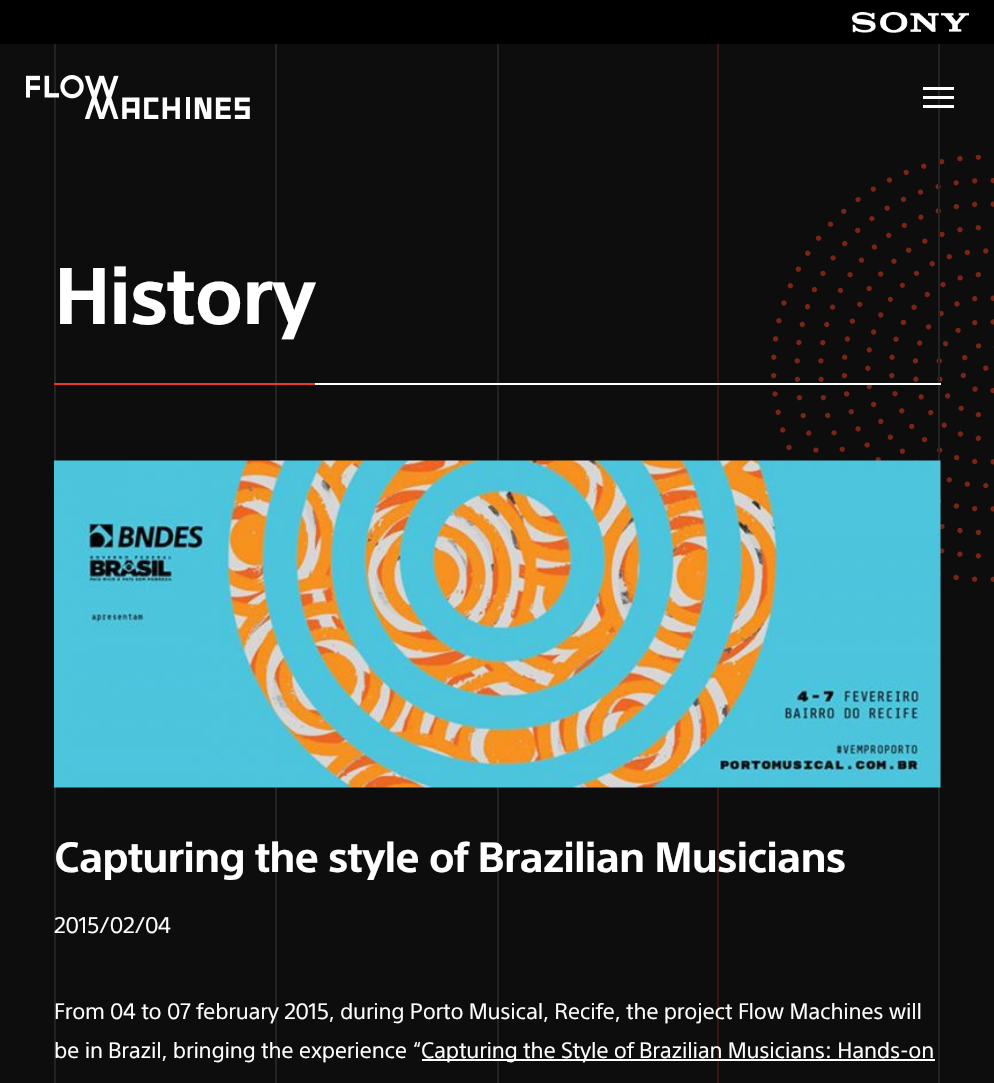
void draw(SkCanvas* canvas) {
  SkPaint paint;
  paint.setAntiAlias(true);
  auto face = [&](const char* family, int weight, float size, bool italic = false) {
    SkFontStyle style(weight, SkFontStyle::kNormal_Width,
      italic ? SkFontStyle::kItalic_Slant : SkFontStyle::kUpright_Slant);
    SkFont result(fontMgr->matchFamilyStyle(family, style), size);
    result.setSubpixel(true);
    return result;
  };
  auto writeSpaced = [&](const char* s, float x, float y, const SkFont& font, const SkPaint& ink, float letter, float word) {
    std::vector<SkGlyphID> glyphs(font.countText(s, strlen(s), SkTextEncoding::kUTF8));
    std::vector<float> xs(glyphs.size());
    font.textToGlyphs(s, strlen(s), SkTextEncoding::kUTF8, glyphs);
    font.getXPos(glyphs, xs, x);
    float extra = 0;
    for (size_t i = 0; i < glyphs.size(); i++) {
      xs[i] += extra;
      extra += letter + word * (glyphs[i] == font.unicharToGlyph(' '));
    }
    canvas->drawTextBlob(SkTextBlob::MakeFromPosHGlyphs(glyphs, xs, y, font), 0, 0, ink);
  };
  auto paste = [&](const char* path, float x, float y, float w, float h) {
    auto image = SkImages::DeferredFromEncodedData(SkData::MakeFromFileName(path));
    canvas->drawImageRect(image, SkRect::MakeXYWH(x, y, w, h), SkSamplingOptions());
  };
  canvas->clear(0xff0d0d0d);
  paint.setColor(0xff000000);
  canvas->drawRect(SkRect::MakeXYWH(0, 0, 994, 44), paint);
  paste("img/1.png", 852, 12, 117, 21);
  paint.setColor(0xff232323);
  canvas->drawRect(SkRect::MakeXYWH(54, 44, 2, 1039), paint);
  paste("img/2.png", 26, 75, 224, 44);
  paste("img/3.png", 771, 155, 223, 427);
  {
    const struct { float x, y, w, h; SkColor color; } items[] = {
      {938, 44, 2, 1039, 0xff232323},
      {923, 87, 31, 3, 0xffffffff},
      {923, 96, 31, 3, 0xffffffff},
      {923, 105, 31, 3, 0xffffffff},
      {275, 44, 2, 1039, 0xff232323},
      {497, 44, 2, 1039, 0xff232323},
      {717, 44, 2, 1039, 0xff391611},
      {315, 383, 626, 2, 0xffffffff},
      {54, 383, 261, 2, 0xffe83b22},
    };
    for (auto [x, y, w, h, color] : items) {
      paint.setColor(color);
      canvas->drawRect(SkRect::MakeXYWH(x, y, w, h), paint);
    }
  }
  paste("img/4.png", 54, 460, 887, 328);
  paint.setColor(0xffffffff);
  canvas->drawRect(SkRect::MakeXYWH(422, 1059, 513, 2), paint);
  auto f0 = face("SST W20", 700, 78.5f);
  writeSpaced("History", 54, 324, f0, paint, -1.5f, 0);
  auto f1 = face("SST W20", 700, 41.4f);
  writeSpaced("Capturing the style of Brazilian Musicians", 54, 872, f1, paint, -0.85f, 0);
  auto f2 = face("SST W20", 400, 22);
  writeSpaced("2015/02/04", 54, 933, f2, paint, -0.22f, 0);
  auto f3 = face("SST W20", 400, 21.75f);
  {
    const struct { const char* s; float x, y; } items[] = {
      {"From 04 to 07 february 2015, during Porto Musical, Recife, the project Flow Machines will", 54, 1019},
      {"be in Brazil, bringing the experience “", 54, 1058},
      {"Capturing the Style of Brazilian Musicians: Hands-on", 421, 1058},
    };
    for (auto [s, x, y] : items) {
      writeSpaced(s, x, y, f3, paint, -0.22f, 0);
    }
  }
}
